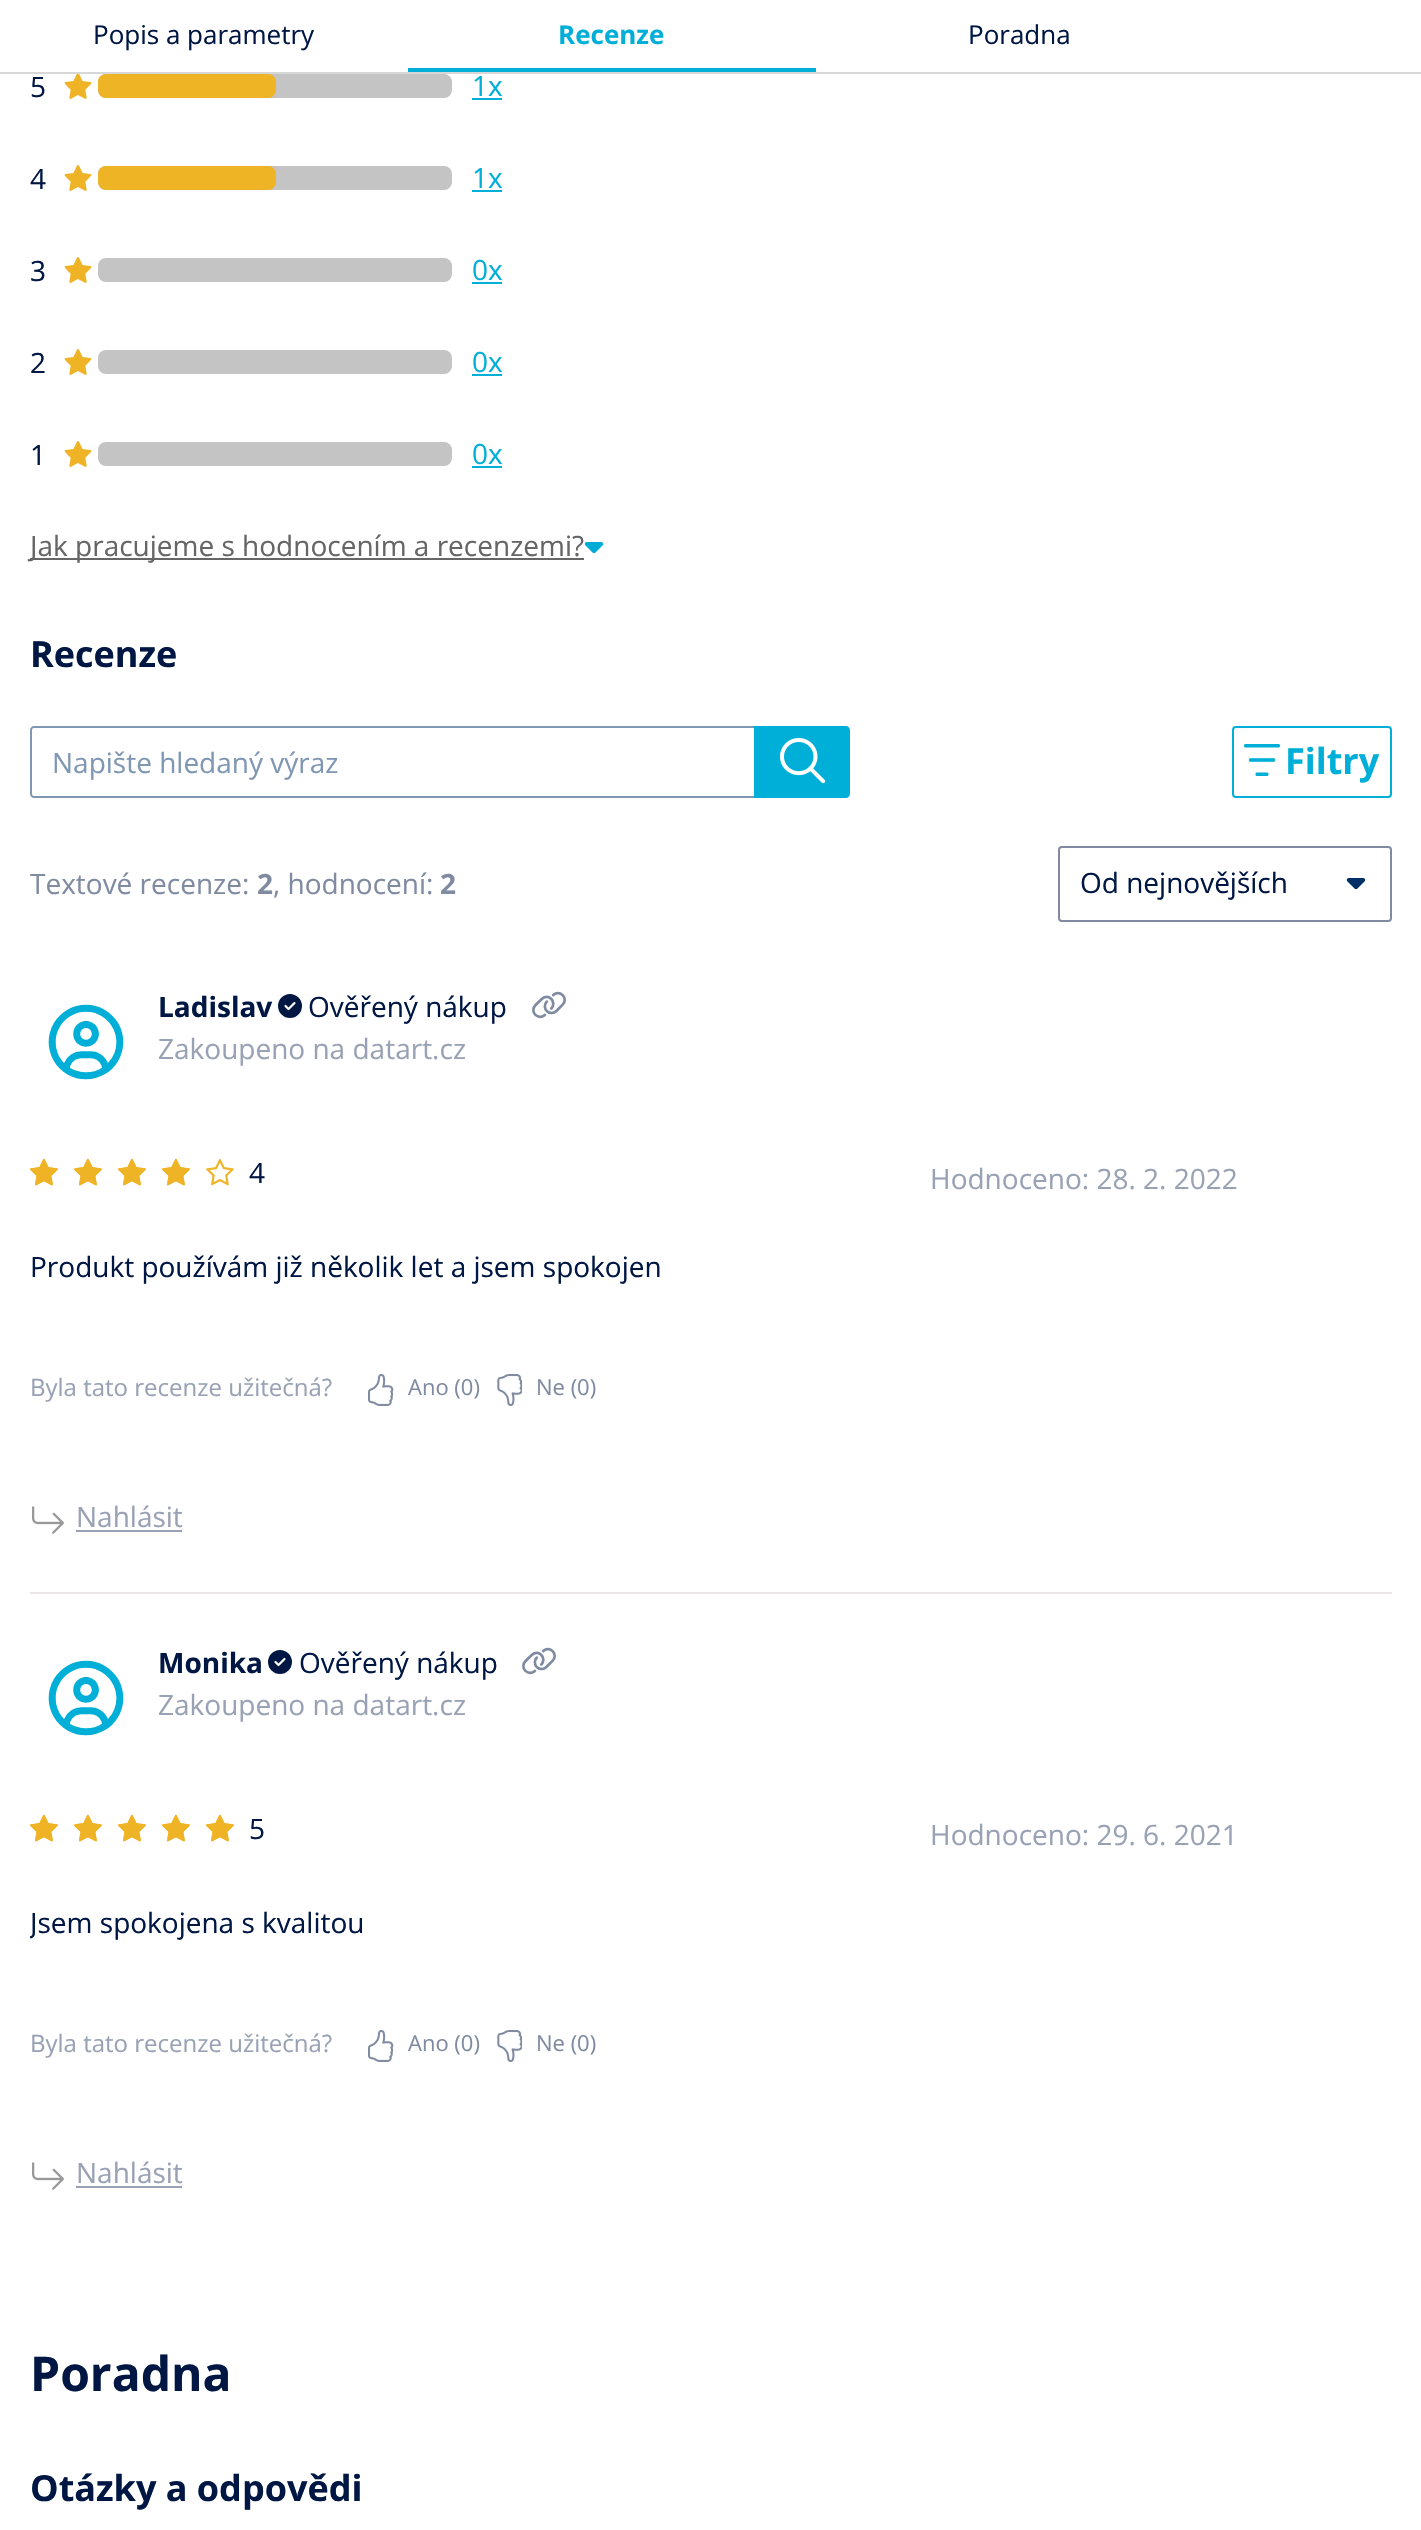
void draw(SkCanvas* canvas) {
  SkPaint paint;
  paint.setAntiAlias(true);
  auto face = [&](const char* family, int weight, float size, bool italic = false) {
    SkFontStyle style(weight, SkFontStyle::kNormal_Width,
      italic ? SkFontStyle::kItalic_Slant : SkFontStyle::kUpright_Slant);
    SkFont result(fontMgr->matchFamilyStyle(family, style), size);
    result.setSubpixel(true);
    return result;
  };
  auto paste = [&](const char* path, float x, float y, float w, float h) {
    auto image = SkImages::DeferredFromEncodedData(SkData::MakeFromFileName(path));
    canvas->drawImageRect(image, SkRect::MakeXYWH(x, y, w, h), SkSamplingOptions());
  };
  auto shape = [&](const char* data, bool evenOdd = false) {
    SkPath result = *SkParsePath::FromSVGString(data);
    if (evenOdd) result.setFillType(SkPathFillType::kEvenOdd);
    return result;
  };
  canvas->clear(0xffffffff);
  paint.setColor(0xffd7d7d7);
  canvas->drawRect(SkRect::MakeXYWH(0, 72, 1421, 2), paint);
  paint.setColor(0xff00afd8);
  canvas->drawRect(SkRect::MakeXYWH(408, 68, 408, 4), paint);
  paste("img/1.png", 64, 74, 28, 25);
  paint.setColor(0xffc4c4c4);
  canvas->drawRoundRect(SkRect::MakeXYWH(98, 74, 354, 24), 8, 8, paint);
  paint.setColor(0xffeeb426);
  canvas->drawRoundRect(SkRect::MakeXYWH(98, 74, 178, 24), 8, 8, paint);
  paint.setColor(0xff00afd8);
  canvas->drawRect(SkRect::MakeXYWH(472, 98, 30, 2), paint);
  paste("img/2.png", 64, 165, 28, 26);
  paint.setColor(0xffc4c4c4);
  canvas->drawRoundRect(SkRect::MakeXYWH(98, 166, 354, 24), 8, 8, paint);
  paint.setColor(0xffeeb426);
  canvas->drawRoundRect(SkRect::MakeXYWH(98, 166, 178, 24), 8, 8, paint);
  paint.setColor(0xff00afd8);
  canvas->drawRect(SkRect::MakeXYWH(472, 190, 30, 2), paint);
  paste("img/3.png", 64, 257, 28, 26);
  paint.setColor(0xffc4c4c4);
  canvas->drawRoundRect(SkRect::MakeXYWH(98, 258, 354, 24), 8, 8, paint);
  paint.setColor(0xff00afd8);
  canvas->drawRect(SkRect::MakeXYWH(472, 282, 30, 2), paint);
  paste("img/3.png", 64, 349, 28, 26);
  paint.setColor(0xffc4c4c4);
  canvas->drawRoundRect(SkRect::MakeXYWH(98, 350, 354, 24), 8, 8, paint);
  paint.setColor(0xff00afd8);
  canvas->drawRect(SkRect::MakeXYWH(472, 374, 30, 2), paint);
  paste("img/3.png", 64, 441, 28, 26);
  paint.setColor(0xffc4c4c4);
  canvas->drawRoundRect(SkRect::MakeXYWH(98, 442, 354, 24), 8, 8, paint);
  paint.setColor(0xff00afd8);
  canvas->drawRect(SkRect::MakeXYWH(472, 466, 30, 2), paint);
  paint.setColor(0xff666666);
  canvas->drawRect(SkRect::MakeXYWH(30, 558, 554, 2), paint);
  paste("img/4.png", 584, 542, 20, 12);
  paint.setStroke(true);
  paint.setStrokeWidth(2);
  paint.setColor(0xff8097b3);
  canvas->drawPath(shape("M34 727H759V797H34C32.5 797 31 795.5 31 794V730C31 728.5 32.5 727 34 727Z"), paint);
  paint.setStroke(false);
  paint.setColor(0xff00afd8);
  canvas->drawPath(shape("M754 726H846C848 726 850 728 850 730V794C850 796 848 798 846 798H754Z"), paint);
  paste("img/5.png", 780, 738, 46, 46);
  paint.setStroke(true);
  canvas->drawRoundRect(SkRect::MakeXYWH(1233, 727, 158, 70), 3, 3, paint);
  paste("img/6.png", 1244, 744, 36, 32);
  paint.setColor(0xff808ba2);
  canvas->drawRoundRect(SkRect::MakeXYWH(1059, 847, 332, 74), 3, 3, paint);
  paste("img/7.png", 1346, 878, 20, 12);
  paint.setStroke(false);
  paint.setColor(0xffeae6e6);
  canvas->drawRect(SkRect::MakeXYWH(30, 1592, 1362, 2), paint);
  paste("img/8.png", 48, 1004, 76, 76);
  paste("img/9.png", 278, 994, 24, 24);
  paste("img/10.png", 532, 991, 34, 28);
  paste("img/11.png", 30, 1158, 28, 28);
  paste("img/11.png", 74, 1158, 28, 28);
  paste("img/11.png", 118, 1158, 28, 28);
  paste("img/11.png", 162, 1158, 28, 28);
  paste("img/11.png", 206, 1158, 28, 28);
  paste("img/12.png", 30, 1158, 28, 28);
  paste("img/12.png", 74, 1158, 28, 28);
  paste("img/12.png", 118, 1158, 28, 28);
  paste("img/12.png", 162, 1158, 28, 28);
  paste("img/13.png", 368, 1374, 26, 32);
  paste("img/14.png", 497, 1374, 25, 32);
  paste("img/15.png", 32, 1506, 32, 28);
  paint.setColor(0xff99a2b4);
  canvas->drawRect(SkRect::MakeXYWH(76, 1530, 106, 2), paint);
  paste("img/16.png", 48, 1660, 76, 76);
  paste("img/9.png", 268, 1650, 24, 24);
  paste("img/10.png", 522, 1647, 34, 28);
  paste("img/11.png", 30, 1814, 28, 28);
  paste("img/11.png", 74, 1814, 28, 28);
  paste("img/11.png", 118, 1814, 28, 28);
  paste("img/11.png", 162, 1814, 28, 28);
  paste("img/11.png", 206, 1814, 28, 28);
  paste("img/12.png", 30, 1814, 28, 28);
  paste("img/12.png", 74, 1814, 28, 28);
  paste("img/12.png", 118, 1814, 28, 28);
  paste("img/12.png", 162, 1814, 28, 28);
  paste("img/12.png", 206, 1814, 28, 28);
  paste("img/13.png", 368, 2030, 26, 32);
  paste("img/14.png", 497, 2030, 25, 32);
  paste("img/15.png", 32, 2162, 32, 28);
  canvas->drawRect(SkRect::MakeXYWH(76, 2186, 106, 2), paint);
  auto f0 = face("Open Sans", 400, 26);
  paint.setColor(0xff001744);
  canvas->drawString("Popis a parametry", 93, 44, f0, paint);
  auto f1 = face("Open Sans", 700, 26);
  paint.setColor(0xff00afd8);
  canvas->drawString("Recenze", 558, 44, f1, paint);
  paint.setColor(0xff001744);
  canvas->drawString("Poradna", 968, 44, f0, paint);
  auto f2 = face("Open Sans", 400, 28);
  canvas->drawString("5", 30, 97, f2, paint);
  paint.setColor(0xff00afd8);
  canvas->drawString("1x", 472, 96, f2, paint);
  paint.setColor(0xff001744);
  canvas->drawString("4", 30, 189, f2, paint);
  paint.setColor(0xff00afd8);
  canvas->drawString("1x", 472, 188, f2, paint);
  paint.setColor(0xff001744);
  canvas->drawString("3", 30, 281, f2, paint);
  paint.setColor(0xff00afd8);
  canvas->drawString("0x", 472, 280, f2, paint);
  paint.setColor(0xff001744);
  canvas->drawString("2", 30, 373, f2, paint);
  paint.setColor(0xff00afd8);
  canvas->drawString("0x", 472, 372, f2, paint);
  paint.setColor(0xff001744);
  canvas->drawString("1", 30, 465, f2, paint);
  paint.setColor(0xff00afd8);
  canvas->drawString("0x", 472, 464, f2, paint);
  paint.setColor(0xff666666);
  canvas->drawString("Jak pracujeme s hodnocením a recenzemi?", 30, 556, f2, paint);
  auto f3 = face("Open Sans", 700, 36);
  paint.setColor(0xff001744);
  canvas->drawString("Recenze", 30, 667, f3, paint);
  paint.setColor(0xff8097b3);
  canvas->drawString("Napište hledaný výraz", 52, 773, f2, paint);
  paint.setColor(0xff00afd8);
  canvas->drawString("Filtry", 1285, 774, f3, paint);
  paint.setColor(0xff808ba2);
  canvas->drawString("Textové recenze:", 30, 894, f2, paint);
  auto f4 = face("Open Sans", 700, 28);
  canvas->drawString("2", 257, 894, f4, paint);
  canvas->drawString(", hodnocení:", 273, 894, f2, paint);
  canvas->drawString("2", 440, 894, f4, paint);
  paint.setColor(0xff001744);
  canvas->drawString("Od nejnovějších", 1080, 893, f2, paint);
  canvas->drawString("Ladislav", 158, 1017, f4, paint);
  canvas->drawString("Ověřený nákup", 308, 1017, f2, paint);
  paint.setColor(0xff99a2b4);
  canvas->drawString("Zakoupeno na datart.cz", 158, 1059, f2, paint);
  paint.setColor(0xff001744);
  canvas->drawString("4", 249, 1183, f2, paint);
  paint.setColor(0xff99a2b4);
  canvas->drawString("Hodnoceno: 28. 2. 2022", 930, 1189, f2, paint);
  paint.setColor(0xff001744);
  canvas->drawString("Produkt používám již několik let a jsem spokojen", 30, 1277, f2, paint);
  auto f5 = face("Open Sans", 400, 24);
  paint.setColor(0xff99a2b4);
  canvas->drawString("Byla tato recenze užitečná?", 30, 1396, f5, paint);
  auto f6 = face("Open Sans", 400, 22);
  paint.setColor(0xff808ba2);
  canvas->drawString("Ano (0)", 408, 1395, f6, paint);
  canvas->drawString("Ne (0)", 536, 1395, f6, paint);
  paint.setColor(0xff99a2b4);
  canvas->drawString("Nahlásit", 76, 1527, f2, paint);
  paint.setColor(0xff001744);
  canvas->drawString("Monika", 158, 1673, f4, paint);
  canvas->drawString("Ověřený nákup", 299, 1673, f2, paint);
  paint.setColor(0xff99a2b4);
  canvas->drawString("Zakoupeno na datart.cz", 158, 1715, f2, paint);
  paint.setColor(0xff001744);
  canvas->drawString("5", 249, 1839, f2, paint);
  paint.setColor(0xff99a2b4);
  canvas->drawString("Hodnoceno: 29. 6. 2021", 930, 1845, f2, paint);
  canvas->save();
  canvas->clipRect(SkRect::MakeXYWH(30, 1880, 1362, 100));
  paint.setColor(0xff001744);
  canvas->drawString("Jsem spokojena s kvalitou", 30, 1933, f2, paint);
  canvas->restore();
  paint.setColor(0xff99a2b4);
  canvas->drawString("Byla tato recenze užitečná?", 30, 2052, f5, paint);
  paint.setColor(0xff808ba2);
  canvas->drawString("Ano (0)", 408, 2051, f6, paint);
  canvas->drawString("Ne (0)", 536, 2051, f6, paint);
  paint.setColor(0xff99a2b4);
  canvas->drawString("Nahlásit", 76, 2183, f2, paint);
  auto f7 = face("Open Sans", 700, 48);
  paint.setColor(0xff001744);
  canvas->drawString("Poradna", 30, 2391, f7, paint);
  canvas->drawString("Otázky a odpovědi", 30, 2501, f3, paint);
}
